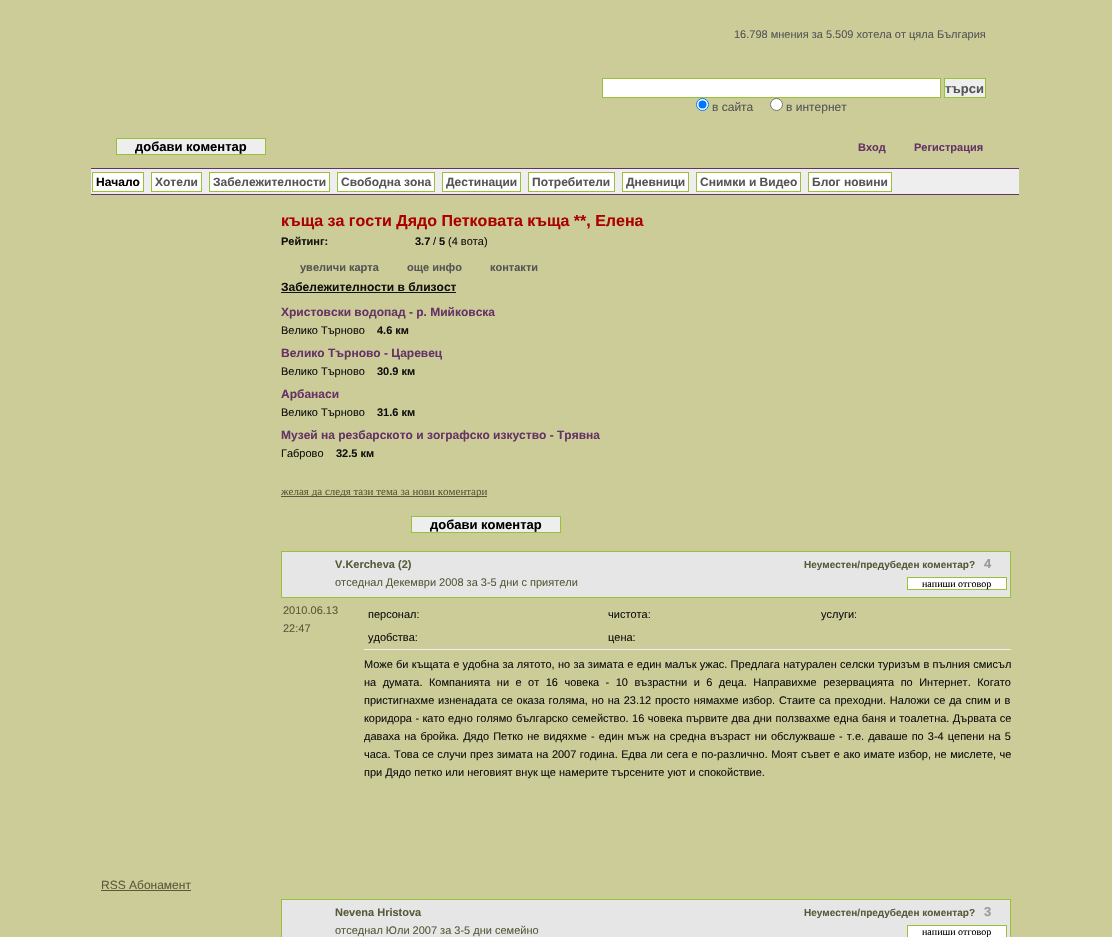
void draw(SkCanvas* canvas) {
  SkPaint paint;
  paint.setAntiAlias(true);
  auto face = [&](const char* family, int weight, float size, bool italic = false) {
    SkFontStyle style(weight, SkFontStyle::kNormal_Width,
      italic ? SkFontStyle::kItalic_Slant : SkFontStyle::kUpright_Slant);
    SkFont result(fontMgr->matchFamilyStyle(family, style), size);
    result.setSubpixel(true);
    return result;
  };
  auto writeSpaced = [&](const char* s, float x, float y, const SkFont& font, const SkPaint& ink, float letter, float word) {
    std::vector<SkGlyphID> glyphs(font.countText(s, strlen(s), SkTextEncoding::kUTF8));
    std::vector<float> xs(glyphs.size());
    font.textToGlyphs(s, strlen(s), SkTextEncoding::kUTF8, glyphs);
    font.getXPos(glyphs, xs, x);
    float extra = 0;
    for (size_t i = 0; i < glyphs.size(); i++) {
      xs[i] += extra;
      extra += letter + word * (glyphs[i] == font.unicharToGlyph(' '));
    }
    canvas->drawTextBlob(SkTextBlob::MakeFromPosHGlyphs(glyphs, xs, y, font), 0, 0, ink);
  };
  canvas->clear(0xffcccc99);
  paint.setColor(0xffffffff);
  canvas->drawRect(SkRect::MakeXYWH(602.5f, 78.5f, 338, 19), paint);
  paint.setStroke(true);
  paint.setStrokeWidth(1);
  paint.setColor(0xff98c038);
  canvas->drawRect(SkRect::MakeXYWH(602.5f, 78.5f, 338, 19), paint);
  paint.setStroke(false);
  paint.setColor(0xffeeeeee);
  canvas->drawRect(SkRect::MakeXYWH(944.5f, 78.5f, 41, 19), paint);
  paint.setStroke(true);
  paint.setColor(0xff98c038);
  canvas->drawRect(SkRect::MakeXYWH(944.5f, 78.5f, 41, 19), paint);
  paint.setStroke(false);
  paint.setColor(0xffffffff);
  canvas->drawCircle(702.5f, 104.5f, 6, paint);
  paint.setStroke(true);
  paint.setColor(0xff0075ff);
  canvas->drawCircle(702.5f, 104.5f, 6, paint);
  paint.setStroke(false);
  canvas->drawCircle(702.5f, 104.5f, 4, paint);
  paint.setColor(0xffffffff);
  canvas->drawCircle(776.5f, 104.5f, 6, paint);
  paint.setStroke(true);
  paint.setColor(0xff767676);
  canvas->drawCircle(776.5f, 104.5f, 6, paint);
  paint.setStroke(false);
  paint.setColor(0xffeeeeee);
  canvas->drawRect(SkRect::MakeXYWH(116.5f, 138.5f, 149, 16), paint);
  paint.setStroke(true);
  paint.setColor(0xff98c038);
  canvas->drawRect(SkRect::MakeXYWH(116.5f, 138.5f, 149, 16), paint);
  paint.setStroke(false);
  {
    const struct { float x, y, w, h; SkColor color; } items[] = {
      {91, 169, 928, 25, 0xffeeeeee},
      {91, 168, 928, 1, 0xff663366},
      {91, 194, 928, 1, 0xff663366},
    };
    for (auto [x, y, w, h, color] : items) {
      paint.setColor(color);
      canvas->drawRect(SkRect::MakeXYWH(x, y, w, h), paint);
    }
  }
  paint.setColor(0xffffffff);
  canvas->drawRect(SkRect::MakeXYWH(92.5f, 172.5f, 51, 19), paint);
  paint.setStroke(true);
  paint.setColor(0xff98c038);
  canvas->drawRect(SkRect::MakeXYWH(92.5f, 172.5f, 51, 19), paint);
  paint.setStroke(false);
  paint.setColor(0xffffffff);
  canvas->drawRect(SkRect::MakeXYWH(151.5f, 172.5f, 50, 19), paint);
  paint.setStroke(true);
  paint.setColor(0xff98c038);
  canvas->drawRect(SkRect::MakeXYWH(151.5f, 172.5f, 50, 19), paint);
  paint.setStroke(false);
  paint.setColor(0xffffffff);
  canvas->drawRect(SkRect::MakeXYWH(209.5f, 172.5f, 120, 19), paint);
  paint.setStroke(true);
  paint.setColor(0xff98c038);
  canvas->drawRect(SkRect::MakeXYWH(209.5f, 172.5f, 120, 19), paint);
  paint.setStroke(false);
  paint.setColor(0xffffffff);
  canvas->drawRect(SkRect::MakeXYWH(337.5f, 172.5f, 97, 19), paint);
  paint.setStroke(true);
  paint.setColor(0xff98c038);
  canvas->drawRect(SkRect::MakeXYWH(337.5f, 172.5f, 97, 19), paint);
  paint.setStroke(false);
  paint.setColor(0xffffffff);
  canvas->drawRect(SkRect::MakeXYWH(442.5f, 172.5f, 78, 19), paint);
  paint.setStroke(true);
  paint.setColor(0xff98c038);
  canvas->drawRect(SkRect::MakeXYWH(442.5f, 172.5f, 78, 19), paint);
  paint.setStroke(false);
  paint.setColor(0xffffffff);
  canvas->drawRect(SkRect::MakeXYWH(528.5f, 172.5f, 86, 19), paint);
  paint.setStroke(true);
  paint.setColor(0xff98c038);
  canvas->drawRect(SkRect::MakeXYWH(528.5f, 172.5f, 86, 19), paint);
  paint.setStroke(false);
  paint.setColor(0xffffffff);
  canvas->drawRect(SkRect::MakeXYWH(622.5f, 172.5f, 66, 19), paint);
  paint.setStroke(true);
  paint.setColor(0xff98c038);
  canvas->drawRect(SkRect::MakeXYWH(622.5f, 172.5f, 66, 19), paint);
  paint.setStroke(false);
  paint.setColor(0xffffffff);
  canvas->drawRect(SkRect::MakeXYWH(696.5f, 172.5f, 104, 19), paint);
  paint.setStroke(true);
  paint.setColor(0xff98c038);
  canvas->drawRect(SkRect::MakeXYWH(696.5f, 172.5f, 104, 19), paint);
  paint.setStroke(false);
  paint.setColor(0xffffffff);
  canvas->drawRect(SkRect::MakeXYWH(808.5f, 172.5f, 83, 19), paint);
  paint.setStroke(true);
  paint.setColor(0xff98c038);
  canvas->drawRect(SkRect::MakeXYWH(808.5f, 172.5f, 83, 19), paint);
  paint.setStroke(false);
  {
    const struct { float x, y, w, h; SkColor color; } items[] = {
      {101, 890, 90, 1, 0xff595a3a},
      {281, 292, 175, 1, 0xff111111},
      {281, 496, 206, 1, 0xff595a3a},
    };
    for (auto [x, y, w, h, color] : items) {
      paint.setColor(color);
      canvas->drawRect(SkRect::MakeXYWH(x, y, w, h), paint);
    }
  }
  paint.setColor(0xffeeeeee);
  canvas->drawRect(SkRect::MakeXYWH(411.5f, 516.5f, 149, 16), paint);
  paint.setStroke(true);
  paint.setColor(0xff98c038);
  canvas->drawRect(SkRect::MakeXYWH(411.5f, 516.5f, 149, 16), paint);
  paint.setStroke(false);
  paint.setColor(0xffe6e6e6);
  canvas->drawRect(SkRect::MakeXYWH(281.5f, 551.5f, 729, 46), paint);
  paint.setStroke(true);
  paint.setColor(0xff98c038);
  canvas->drawRect(SkRect::MakeXYWH(281.5f, 551.5f, 729, 46), paint);
  paint.setStroke(false);
  paint.setColor(0xffffffff);
  canvas->drawRect(SkRect::MakeXYWH(907.5f, 577.5f, 99, 12), paint);
  paint.setStroke(true);
  paint.setColor(0xff98c038);
  canvas->drawRect(SkRect::MakeXYWH(907.5f, 577.5f, 99, 12), paint);
  paint.setStroke(false);
  paint.setColor(0xffeeeeee);
  canvas->drawRect(SkRect::MakeXYWH(364, 649, 647, 1), paint);
  paint.setColor(0xffe6e6e6);
  canvas->drawRect(SkRect::MakeXYWH(281.5f, 899.5f, 729, 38), paint);
  paint.setStroke(true);
  paint.setColor(0xff98c038);
  canvas->drawRect(SkRect::MakeXYWH(281.5f, 899.5f, 729, 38), paint);
  paint.setStroke(false);
  paint.setColor(0xffffffff);
  canvas->drawRect(SkRect::MakeXYWH(907.5f, 925.5f, 99, 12), paint);
  paint.setStroke(true);
  paint.setColor(0xff98c038);
  canvas->drawRect(SkRect::MakeXYWH(907.5f, 925.5f, 99, 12), paint);
  auto f0 = face("Liberation Sans", 400, 11);
  paint.setStroke(false);
  paint.setColor(0xff555555);
  canvas->drawString("16.798 мнения за 5.509 хотела от цяла България", 734, 38, f0, paint);
  auto f1 = face("Liberation Sans", 700, 13);
  canvas->drawString("търси", 945, 93, f1, paint);
  auto f2 = face("Liberation Sans", 400, 12);
  canvas->drawString("в сайта", 712, 111, f2, paint);
  canvas->drawString("в интернет", 786, 111, f2, paint);
  paint.setColor(0xff000000);
  canvas->drawString("добави коментар", 135, 151, f1, paint);
  auto f3 = face("Liberation Sans", 700, 11);
  paint.setColor(0xff663366);
  canvas->drawString("Вход", 858, 151, f3, paint);
  canvas->drawString("Регистрация", 914, 151, f3, paint);
  auto f4 = face("Liberation Sans", 700, 12);
  paint.setColor(0xff000000);
  canvas->drawString("Начало", 96, 186, f4, paint);
  paint.setColor(0xff555555);
  {
    const struct { const char* s; float x, y; } items[] = {
      {"Хотели", 155, 186},
      {"Забележителности", 213, 186},
      {"Свободна зона", 341, 186},
      {"Дестинации", 446, 186},
      {"Потребители", 532, 186},
      {"Дневници", 626, 186},
      {"Снимки и Видео", 700, 186},
      {"Блог новини", 812, 186},
    };
    for (auto [s, x, y] : items) {
      canvas->drawString(s, x, y, f4, paint);
    }
  }
  paint.setColor(0xff595a3a);
  canvas->drawString("RSS Абонамент", 101, 889, f2, paint);
  auto f5 = face("Liberation Sans", 700, 16);
  paint.setColor(0xffaa0000);
  canvas->drawString("къща за гости Дядо Петковата къща **, Елена", 281, 226, f5, paint);
  paint.setColor(0xff111111);
  canvas->drawString("Рейтинг:", 281, 245, f3, paint);
  canvas->drawString("3.7", 415, 245, f3, paint);
  canvas->drawString("/", 433, 245, f0, paint);
  canvas->drawString("5", 439, 245, f3, paint);
  canvas->drawString("(4 вота)", 448, 245, f0, paint);
  paint.setColor(0xff555555);
  {
    const struct { const char* s; float x, y; } items[] = {
      {"увеличи карта", 300, 271},
      {"още инфо", 407, 271},
      {"контакти", 490, 271},
    };
    for (auto [s, x, y] : items) {
      canvas->drawString(s, x, y, f3, paint);
    }
  }
  paint.setColor(0xff111111);
  canvas->drawString("Забележителности в близост", 281, 291, f4, paint);
  paint.setColor(0xff663366);
  canvas->drawString("Христовски водопад - р. Мийковска", 281, 316, f4, paint);
  paint.setColor(0xff111111);
  canvas->drawString("Велико Търново", 281, 334, f0, paint);
  canvas->drawString("4.6 км", 377, 334, f3, paint);
  paint.setColor(0xff663366);
  canvas->drawString("Велико Търново - Царевец", 281, 357, f4, paint);
  paint.setColor(0xff111111);
  canvas->drawString("Велико Търново", 281, 375, f0, paint);
  canvas->drawString("30.9 км", 377, 375, f3, paint);
  paint.setColor(0xff663366);
  canvas->drawString("Арбанаси", 281, 398, f4, paint);
  paint.setColor(0xff111111);
  canvas->drawString("Велико Търново", 281, 416, f0, paint);
  canvas->drawString("31.6 км", 377, 416, f3, paint);
  paint.setColor(0xff663366);
  canvas->drawString("Музей на резбарското и зографско изкуство - Трявна", 281, 439, f4, paint);
  paint.setColor(0xff111111);
  canvas->drawString("Габрово", 281, 457, f0, paint);
  canvas->drawString("32.5 км", 336, 457, f3, paint);
  auto f6 = face("Liberation Serif", 400, 11);
  paint.setColor(0xff595a3a);
  canvas->drawString("желая да следя тази тема за нови коментари", 281, 495, f6, paint);
  paint.setColor(0xff000000);
  canvas->drawString("добави коментар", 430, 529, f1, paint);
  paint.setColor(0xff595a3a);
  canvas->drawString("V.Kercheva (2)", 335, 568, f3, paint);
  canvas->drawString("отседнал Декември 2008 за 3-5 дни с приятели", 335, 586, f0, paint);
  auto f7 = face("Liberation Sans", 700, 10);
  canvas->drawString("Неуместен/предубеден коментар?", 804, 568, f7, paint);
  paint.setColor(0xff999999);
  canvas->drawString("4", 984, 568, f1, paint);
  auto f8 = face("Liberation Serif", 400, 10);
  paint.setColor(0xff000000);
  canvas->drawString("напиши отговор", 922, 587, f8, paint);
  paint.setColor(0xff595a3a);
  canvas->drawString("2010.06.13", 283, 614, f0, paint);
  canvas->drawString("22:47", 283, 632, f0, paint);
  paint.setColor(0xff111111);
  {
    const struct { const char* s; float x, y; } items[] = {
      {"персонал:", 368, 618},
      {"чистота:", 608, 618},
      {"услуги:", 821, 618},
      {"удобства:", 368, 641},
      {"цена:", 608, 641},
    };
    for (auto [s, x, y] : items) {
      canvas->drawString(s, x, y, f0, paint);
    }
  }
  writeSpaced("Може би къщата е удобна за лятото, но за зимата е един малък ужас. Предлага натурален селски туризъм в пълния смисъл", 364, 668, f0, paint, 0, 0.25f);
  writeSpaced("на думата. Компанията ни е от 16 човека - 10 възрастни и 6 деца. Направихме резервацията по Интернет. Когато", 364, 686, f0, paint, 0, 3.4f);
  writeSpaced("пристигнахме изненадата се оказа голяма, но на 23.12 просто нямахме избор. Стаите са преходни. Наложи се да спим и в", 364, 704, f0, paint, 0, 0.75f);
  writeSpaced("коридора - като едно голямо българско семейство. 16 човека първите два дни ползвахме една баня и тоалетна. Дървата се", 364, 722, f0, paint, 0, 0.4f);
  writeSpaced("даваха на бройка. Дядо Петко не видяхме - един мъж на средна възраст ни обслужваше - т.е. даваше по 3-4 цепени на 5", 364, 740, f0, paint, 0, 1);
  writeSpaced("часа. Това се случи през зимата на 2007 година. Едва ли сега е по-различно. Моят съвет е ако имате избор, не мислете, че", 364, 758, f0, paint, 0, 0.4f);
  canvas->drawString("при Дядо петко или неговият внук ще намерите търсените уют и спокойствие.", 364, 776, f0, paint);
  paint.setColor(0xff595a3a);
  canvas->drawString("Nevena Hristova", 335, 916, f3, paint);
  canvas->drawString("отседнал Юли 2007 за 3-5 дни семейно", 335, 934, f0, paint);
  canvas->drawString("Неуместен/предубеден коментар?", 804, 916, f7, paint);
  paint.setColor(0xff999999);
  canvas->drawString("3", 984, 916, f1, paint);
  paint.setColor(0xff000000);
  canvas->drawString("напиши отговор", 922, 935, f8, paint);
}
